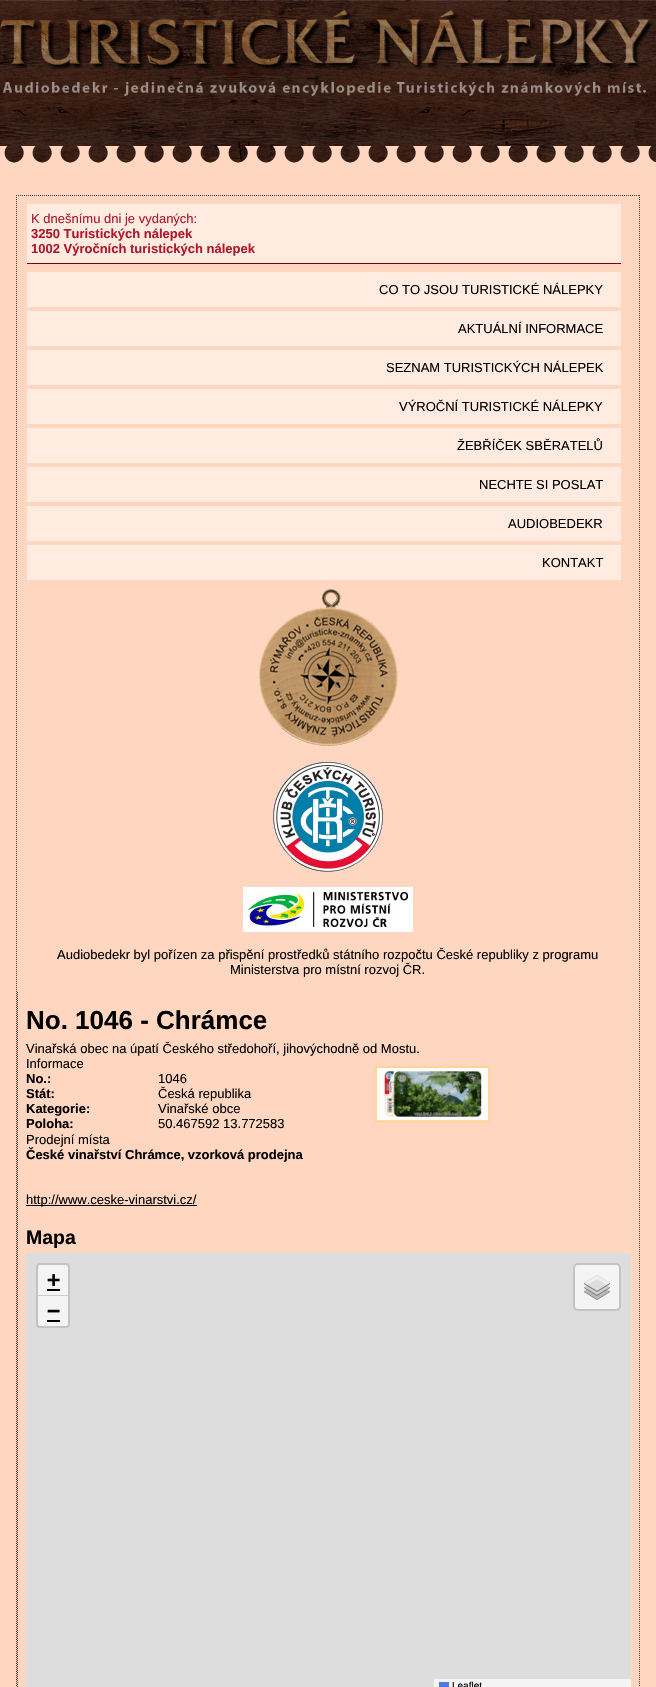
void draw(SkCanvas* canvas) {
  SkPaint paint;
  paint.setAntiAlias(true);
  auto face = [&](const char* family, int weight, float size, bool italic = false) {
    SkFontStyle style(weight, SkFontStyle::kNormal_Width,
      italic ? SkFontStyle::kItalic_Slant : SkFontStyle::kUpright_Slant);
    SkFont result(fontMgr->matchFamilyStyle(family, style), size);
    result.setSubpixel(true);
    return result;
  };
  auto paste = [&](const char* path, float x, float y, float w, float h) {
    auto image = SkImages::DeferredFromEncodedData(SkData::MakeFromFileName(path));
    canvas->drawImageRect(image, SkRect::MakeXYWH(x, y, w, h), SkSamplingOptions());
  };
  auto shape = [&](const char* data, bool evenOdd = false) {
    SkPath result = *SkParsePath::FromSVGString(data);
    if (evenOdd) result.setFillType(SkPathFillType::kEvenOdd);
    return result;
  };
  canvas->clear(0xffffffff);
  paste("img/1.png", 0, 0, 656, 163);
  paste("img/2.png", 0, 10, 654, 60);
  paste("img/3.png", 2, 82, 644, 14);
  paste("img/4.png", 0, 146, 656, 17);
  paint.setColor(0xffffd7c1);
  canvas->drawRect(SkRect::MakeXYWH(0, 163, 656, 1524), paint);
  paint.setStroke(true);
  paint.setStrokeWidth(1);
  paint.setColor(0xff513a2d);
  paint.setPathEffect(SkDashPathEffect::Make({{1, 1}}, 0));
  canvas->drawPath(shape("M16 195.5H640"), paint);
  paint.setPathEffect(nullptr);
  paint.setPathEffect(SkDashPathEffect::Make({{1, 1}}, 0));
  canvas->drawPath(shape("M639.5 195V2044"), paint);
  paint.setPathEffect(nullptr);
  paint.setPathEffect(SkDashPathEffect::Make({{1, 1}}, 0));
  canvas->drawPath(shape("M16.5 195V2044"), paint);
  paint.setPathEffect(nullptr);
  paint.setStroke(false);
  {
    const struct { float x, y, w, h; SkColor color; } items[] = {
      {27, 204, 594, 59, 0xffffebe0},
      {27, 263, 594, 1, 0xff800000},
      {27, 272, 594, 35, 0xffffebe0},
      {27, 311, 594, 35, 0xffffebe0},
      {27, 350, 594, 35, 0xffffebe0},
      {27, 389, 594, 35, 0xffffebe0},
      {27, 428, 594, 35, 0xffffebe0},
      {27, 467, 594, 35, 0xffffebe0},
      {27, 506, 594, 35, 0xffffebe0},
      {27, 545, 594, 35, 0xffffebe0},
    };
    for (auto [x, y, w, h, color] : items) {
      paint.setColor(color);
      canvas->drawRect(SkRect::MakeXYWH(x, y, w, h), paint);
    }
  }
  paste("img/5.png", 259, 588, 139, 159);
  paste("img/6.png", 273, 762, 110, 110);
  paste("img/7.png", 243, 887, 170, 45);
  paint.setStroke(true);
  paint.setColor(0xff513a2d);
  paint.setPathEffect(SkDashPathEffect::Make({{1, 1}}, 0));
  canvas->drawPath(shape("M17.5 992V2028"), paint);
  paint.setPathEffect(nullptr);
  paint.setColor(0xffffd396);
  canvas->drawRect(SkRect::MakeXYWH(375.5f, 1066.5f, 114, 55), paint);
  paste("img/8.png", 376, 1067, 113, 54);
  paint.setStroke(false);
  paint.setColor(0xff000000);
  canvas->drawRect(SkRect::MakeXYWH(26, 1205, 171, 1), paint);
  paint.setColor(0xffdddddd);
  canvas->drawRect(SkRect::MakeXYWH(26, 1253, 605, 434), paint);
  paint.setColor(0xfff4f4f4);
  canvas->drawRoundRect(SkRect::MakeXYWH(36, 1263, 34, 65), 4, 4, paint);
  paint.setStroke(true);
  paint.setStrokeWidth(2);
  paint.setColor(0x33000000);
  canvas->drawRoundRect(SkRect::MakeXYWH(37, 1264, 32, 63), 3, 3, paint);
  paint.setStroke(false);
  {
    const struct { float x, y, w, h; SkColor color; } items[] = {
      {38, 1295, 30, 1, 0xffcccccc},
      {47, 1289, 13, 2, 0xff000000},
      {47, 1320, 13, 2, 0xff000000},
    };
    for (auto [x, y, w, h, color] : items) {
      paint.setColor(color);
      canvas->drawRect(SkRect::MakeXYWH(x, y, w, h), paint);
    }
  }
  paint.setColor(0xfff4f4f4);
  canvas->drawRoundRect(SkRect::MakeXYWH(573, 1263, 48, 48), 5, 5, paint);
  paint.setStroke(true);
  paint.setColor(0x33000000);
  canvas->drawRoundRect(SkRect::MakeXYWH(574, 1264, 46, 46), 4, 4, paint);
  paste("img/9.png", 584, 1275, 26, 25);
  paint.setStroke(false);
  paint.setColor(0xfff4f4f4);
  canvas->drawRect(SkRect::MakeXYWH(434, 1679, 197, 8), paint);
  paint.setColor(0xff4c7be1);
  canvas->drawRect(SkRect::MakeXYWH(439, 1682, 10, 5), paint);
  auto f0 = face("Liberation Sans", 400, 13);
  paint.setColor(0xffaf182a);
  canvas->drawString("K dnešnímu dni je vydaných:", 31, 223, f0, paint);
  auto f1 = face("Liberation Sans", 700, 13);
  canvas->drawString("3250 Turistických nálepek", 31, 238, f1, paint);
  canvas->drawString("1002 Výročních turistických nálepek", 31, 253, f1, paint);
  paint.setColor(0xff000000);
  {
    const struct { const char* s; float x, y; } items[] = {
      {"CO TO JSOU TURISTICKÉ NÁLEPKY", 379, 294},
      {"AKTUÁLNÍ INFORMACE", 458, 333},
      {"SEZNAM TURISTICKÝCH NÁLEPEK", 386, 372},
      {"VÝROČNÍ TURISTICKÉ NÁLEPKY", 399, 411},
      {"ŽEBŘÍČEK SBĚRATELŮ", 457, 450},
      {"NECHTE SI POSLAT", 479, 489},
      {"AUDIOBEDEKR", 508, 528},
      {"KONTAKT", 542, 567},
      {"Audiobedekr byl pořízen za přispění prostředků státního rozpočtu České republiky z programu", 57, 959},
      {"Ministerstva pro místní rozvoj ČR.", 230, 974},
    };
    for (auto [s, x, y] : items) {
      canvas->drawString(s, x, y, f0, paint);
    }
  }
  auto f2 = face("Liberation Sans", 700, 26);
  canvas->drawString("No. 1046 - Chrámce", 26, 1029, f2, paint);
  canvas->drawString("Vinařská obec na úpatí Českého středohoří, jihovýchodně od Mostu.", 26, 1053, f0, paint);
  canvas->drawString("Informace", 26, 1068, f0, paint);
  canvas->drawString("No.:", 26, 1083, f1, paint);
  canvas->drawString("1046", 158, 1083, f0, paint);
  canvas->drawString("Stát:", 26, 1098, f1, paint);
  canvas->drawString("Česká republika", 158, 1098, f0, paint);
  canvas->drawString("Kategorie:", 26, 1113, f1, paint);
  canvas->drawString("Vinařské obce", 158, 1113, f0, paint);
  canvas->drawString("Poloha:", 26, 1128, f1, paint);
  canvas->drawString("50.467592 13.772583", 158, 1128, f0, paint);
  canvas->drawString("Prodejní místa", 26, 1144, f0, paint);
  canvas->drawString("České vinařství Chrámce, vzorková prodejna", 26, 1159, f1, paint);
  canvas->drawString("http://www.ceske-vinarstvi.cz/", 26, 1204, f0, paint);
  auto f3 = face("Liberation Sans", 700, 19.5f);
  canvas->drawString("Mapa", 26, 1244, f3, paint);
  auto f4 = face("DejaVu Sans Mono", 700, 22);
  canvas->drawString("+", 47, 1287, f4, paint);
  canvas->drawString("−", 47, 1318, f4, paint);
  auto f5 = face("Liberation Sans", 400, 10);
  canvas->drawString("Leaflet", 452, 1689, f5, paint);
}
